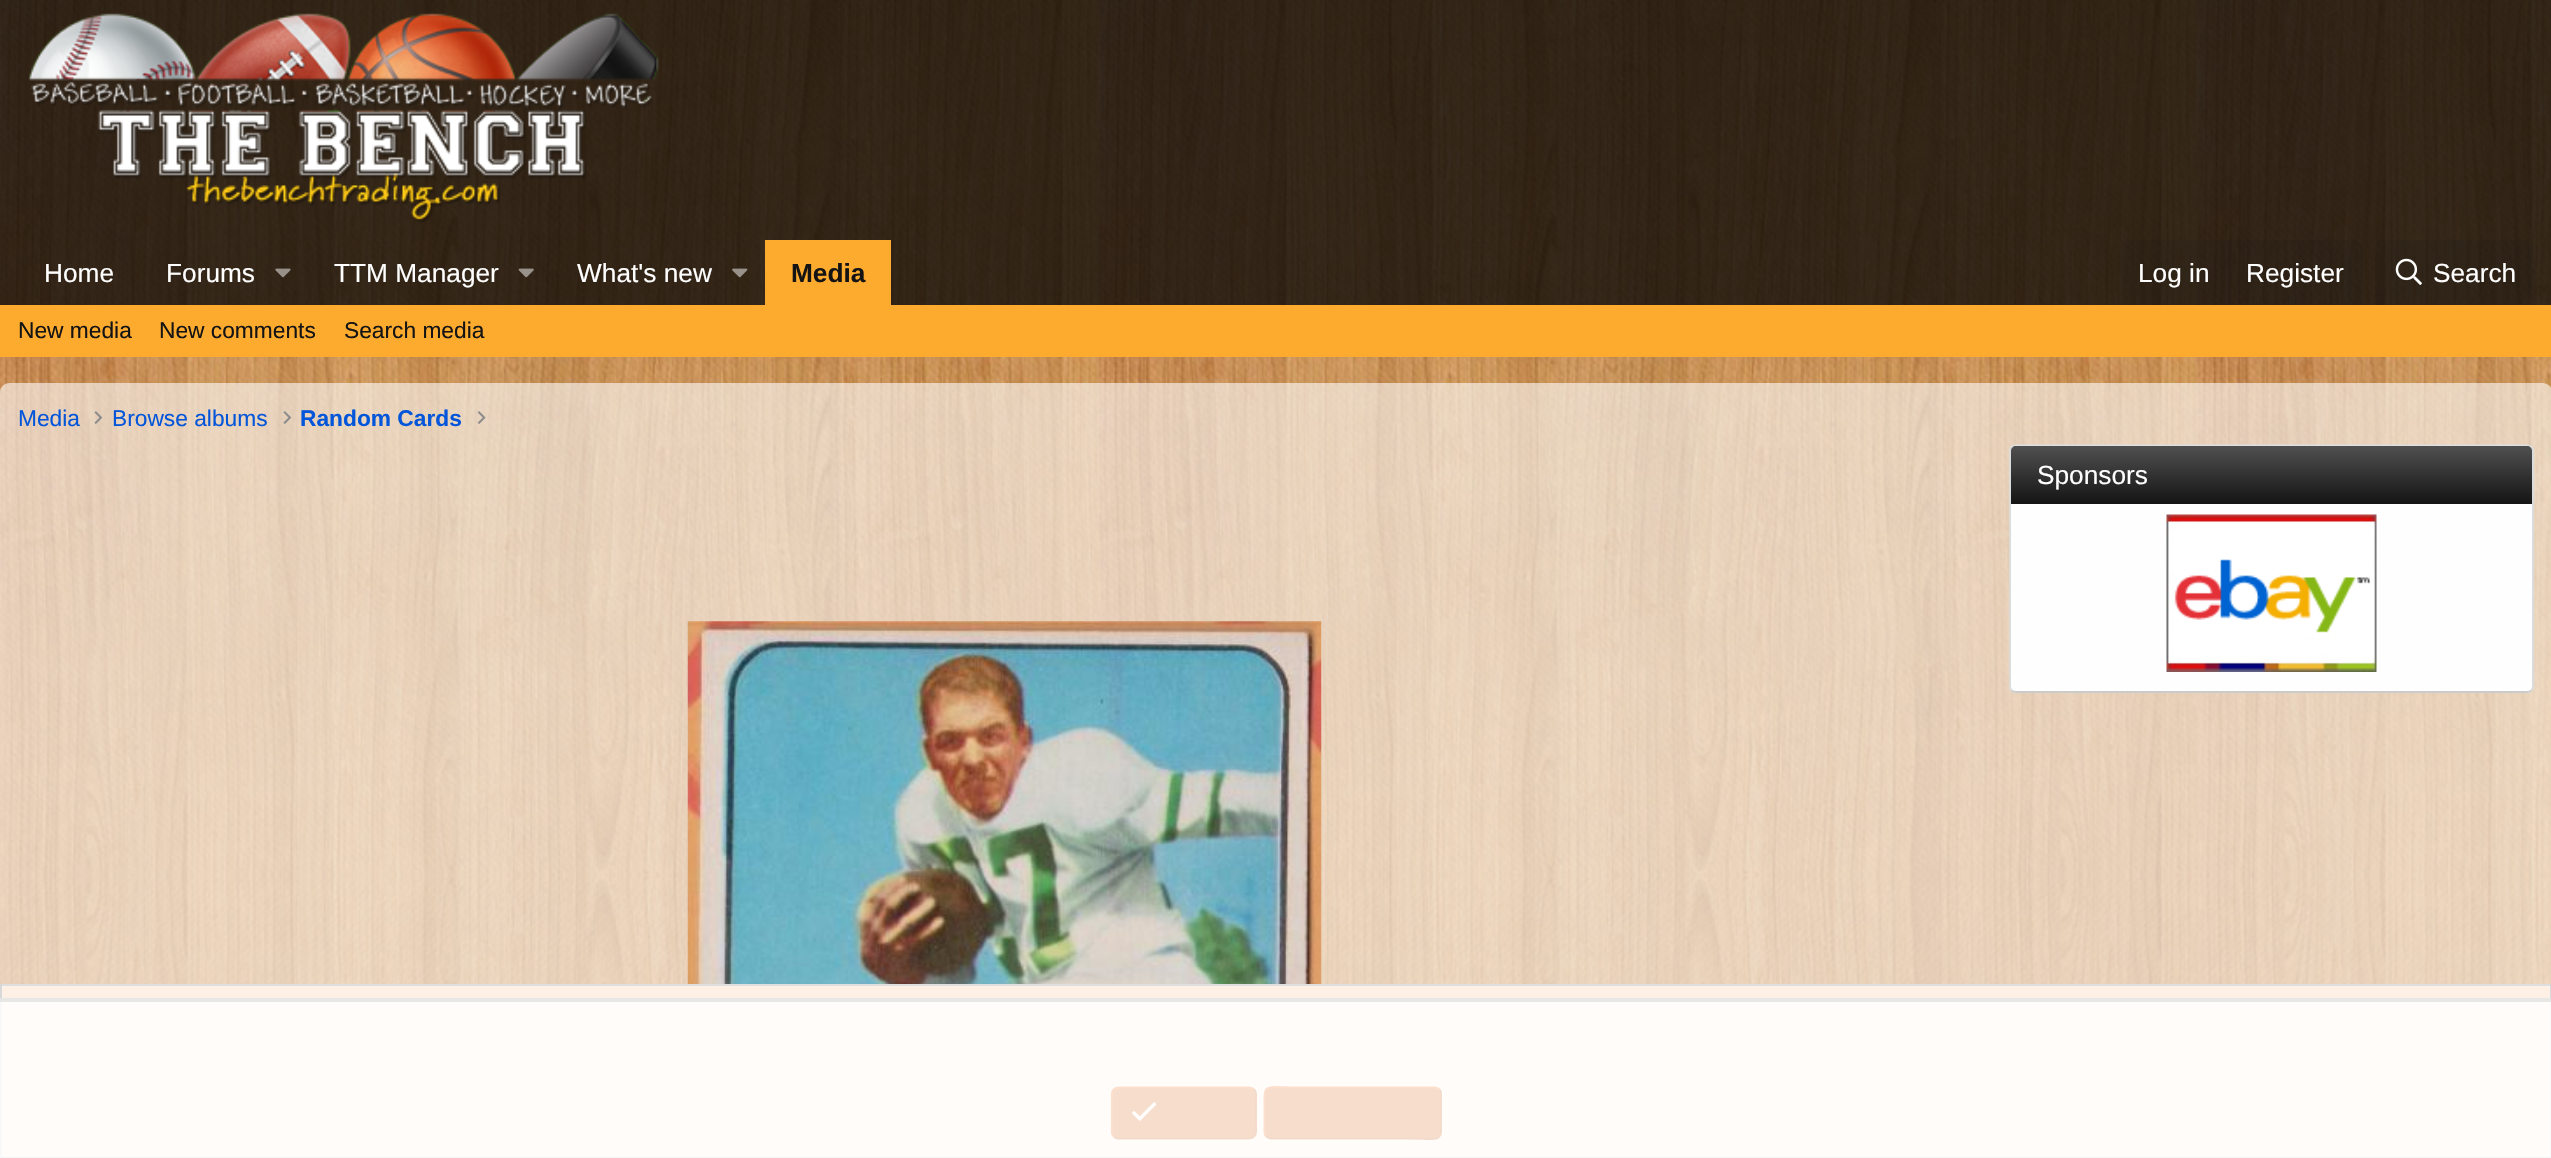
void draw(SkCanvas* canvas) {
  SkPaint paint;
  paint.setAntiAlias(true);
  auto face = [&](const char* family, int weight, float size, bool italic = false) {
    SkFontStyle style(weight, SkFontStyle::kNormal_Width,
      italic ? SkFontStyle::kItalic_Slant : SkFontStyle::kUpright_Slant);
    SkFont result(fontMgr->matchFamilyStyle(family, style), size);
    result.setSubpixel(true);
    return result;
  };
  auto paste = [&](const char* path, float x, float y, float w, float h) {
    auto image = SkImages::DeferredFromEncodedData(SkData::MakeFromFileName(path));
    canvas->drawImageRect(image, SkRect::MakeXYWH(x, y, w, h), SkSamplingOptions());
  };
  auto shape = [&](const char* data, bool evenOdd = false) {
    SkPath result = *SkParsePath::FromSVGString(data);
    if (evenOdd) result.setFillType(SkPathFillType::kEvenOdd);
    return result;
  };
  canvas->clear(0xffffffff);
  paste("img/1.png", 0, 0, 2551, 984);
  paint.setColor(0xbf000000);
  canvas->drawRect(SkRect::MakeXYWH(0, 0, 2551, 240), paint);
  paste("img/2.png", 28, 13, 631, 210);
  canvas->drawRect(SkRect::MakeXYWH(0, 240, 2551, 65), paint);
  paste("img/3.png", 275, 268, 16, 10);
  paste("img/4.png", 518, 268, 16, 10);
  paste("img/5.png", 732, 268, 16, 10);
  paint.setColor(0xfffdab2e);
  canvas->drawRect(SkRect::MakeXYWH(765, 240, 126, 65), paint);
  paint.setColor(0x26141414);
  canvas->drawPath(shape("M2128 240H2356C2360 240 2363 243 2363 247V305H2121V247C2121 243 2124 240 2128 240Z"), paint);
  canvas->drawRect(SkRect::MakeXYWH(2228, 240, 2, 65), paint);
  canvas->drawPath(shape("M2382 240H2527C2531 240 2534 243 2534 247V305H2375V247C2375 243 2378 240 2382 240Z"), paint);
  paste("img/6.png", 2395, 258, 27, 27);
  paint.setColor(0xfffdab2e);
  canvas->drawRect(SkRect::MakeXYWH(0, 305, 2551, 52), paint);
  paint.setColor(0x99fefefe);
  canvas->drawRoundRect(SkRect::MakeXYWH(0, 383, 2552, 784), 9, 9, paint);
  paste("img/7.png", 94, 411, 9, 13);
  paste("img/8.png", 283, 411, 9, 13);
  paste("img/9.png", 477, 411, 9, 13);
  paint.setColor(0xfffefefe);
  canvas->drawRoundRect(SkRect::MakeXYWH(2009, 445, 525, 248), 7, 7, paint);
  paint.setStroke(true);
  paint.setStrokeWidth(1.8f);
  paint.setColor(0xffdfdfdf);
  canvas->drawPath(shape("M2011.5 447C2013 446 2014.5 445.5 2016 445.5H2527C2528.5 445.5 2530 446 2531.5 447"), paint);
  paint.setColor(0xffd8d8d8);
  canvas->drawPath(shape("M2531.5 447C2532.5 448.5 2533 450 2533 451.5V686C2533 687.5 2532.5 689 2531.5 690.5"), paint);
  paint.setColor(0xffcbcbcb);
  canvas->drawPath(shape("M2531.5 690.5C2530 691.5 2528.5 692 2527 692H2016C2014.5 692 2013 691.5 2011.5 690.5"), paint);
  paint.setColor(0xffd8d8d8);
  canvas->drawPath(shape("M2011.5 690.5C2010.5 689 2010 687.5 2010 686V451.5C2010 450 2010.5 448.5 2011.5 447"), paint);
  paint.setStroke(false);
  {
    const SkColor colors[] = {0xff505050, 0xff141414};
    const float stops[] = {0, 1};
    const SkPoint ends[] = {{2272, 446}, {2272, 504}};
    paint.setShader(SkGradientShader::MakeLinear(ends, colors, stops, 2, SkTileMode::kClamp));
    paint.setAlpha(255);
  }
  canvas->drawPath(shape("M2016 446H2527C2530 446 2532 448 2532 451V504H2011V451C2011 448 2013 446 2016 446Z"), paint);
  paste("img/10.png", 2166, 514, 211, 158);
  paste("img/11.png", 687, 621, 635, 363);
  paint.setShader(nullptr);
  {
    const struct { float x, y, w, h; SkColor color; } items[] = {
      {2, 986, 2548, 171, 0xfffef0e5},
      {0, 984, 2551, 2, 0xffdfdfdf},
      {2550, 984, 1, 174, 0xffd8d8d8},
      {0, 1157, 2551, 1, 0xffcbcbcb},
      {0, 984, 2, 174, 0xffd8d8d8},
    };
    for (auto [x, y, w, h, color] : items) {
      paint.setColor(color);
      canvas->drawRect(SkRect::MakeXYWH(x, y, w, h), paint);
    }
  }
  paint.setColor(0xffd65500);
  canvas->drawRoundRect(SkRect::MakeXYWH(1111, 1087, 146, 52), 7, 7, paint);
  paint.setStroke(true);
  paint.setColor(0xffbd4b00);
  canvas->drawPath(shape("M1254 1089.5C1256.5 1092 1255.5 1097 1255.5 1100V1113C1255.5 1143 1259.5 1138.5 1227.5 1138.5H1118C1116.5 1138.5 1115 1137.5 1114 1136.5"), paint);
  paint.setColor(0xfff05f00);
  canvas->drawPath(shape("M1114 1136.5C1111 1134 1112 1129 1112 1126V1113C1112 1083 1108.5 1087.5 1140 1087.5H1249.5C1251 1087.5 1252.5 1088.5 1254 1089.5"), paint);
  paste("img/12.png", 1132, 1102, 25, 19);
  paint.setStroke(false);
  paint.setColor(0xffd65500);
  canvas->drawRoundRect(SkRect::MakeXYWH(1264, 1087, 178, 52), 7, 7, paint);
  paint.setStroke(true);
  paint.setColor(0xffbd4b00);
  canvas->drawPath(shape("M1439.5 1089.5C1442 1092 1441 1097 1441 1100V1113C1441 1145 1444.5 1138.5 1407.5 1138.5H1270.5C1269 1138.5 1267.5 1137.5 1266 1136.5"), paint);
  paint.setColor(0xfff05f00);
  canvas->drawPath(shape("M1266 1136.5C1263.5 1134 1264.5 1129 1264.5 1126V1113C1264.5 1081 1261 1087.5 1298 1087.5H1435C1436.5 1087.5 1438 1088.5 1439.5 1089.5"), paint);
  paint.setStroke(false);
  paint.setColor(0xccffffff);
  canvas->drawRect(SkRect::MakeXYWH(0, 998, 2551, 160), paint);
  paint.setColor(0xcce1e1e1);
  canvas->drawRect(SkRect::MakeXYWH(0, 998, 2551, 4), paint);
  auto f0 = face("Liberation Sans", 400, 26.25f);
  paint.setColor(0xffffffff);
  {
    const struct { const char* s; float x, y; } items[] = {
      {"Home", 44, 282},
      {"Forums", 166, 282},
      {"TTM Manager", 334, 282},
      {"What's new", 577, 282},
    };
    for (auto [s, x, y] : items) {
      canvas->drawString(s, x, y, f0, paint);
    }
  }
  auto f1 = face("Liberation Sans", 700, 26.25f);
  paint.setColor(0xff141414);
  canvas->drawString("Media", 791, 282, f1, paint);
  paint.setColor(0xffffffff);
  {
    const struct { const char* s; float x, y; } items[] = {
      {"Log in", 2138, 282},
      {"Register", 2246, 282},
      {"Search", 2433, 282},
    };
    for (auto [s, x, y] : items) {
      canvas->drawString(s, x, y, f0, paint);
    }
  }
  auto f2 = face("Liberation Sans", 400, 22.75f);
  paint.setColor(0xff141414);
  {
    const struct { const char* s; float x, y; } items[] = {
      {"New media", 18, 338},
      {"New comments", 159, 338},
      {"Search media", 344, 338},
    };
    for (auto [s, x, y] : items) {
      canvas->drawString(s, x, y, f2, paint);
    }
  }
  paint.setColor(0xff0355da);
  canvas->drawString("Media", 18, 426, f2, paint);
  canvas->drawString("Browse albums", 112, 426, f2, paint);
  auto f3 = face("Liberation Sans", 700, 22.75f);
  canvas->drawString("Random Cards", 300, 426, f3, paint);
  paint.setColor(0xffffffff);
  canvas->drawString("Sponsors", 2037, 484, f0, paint);
}
